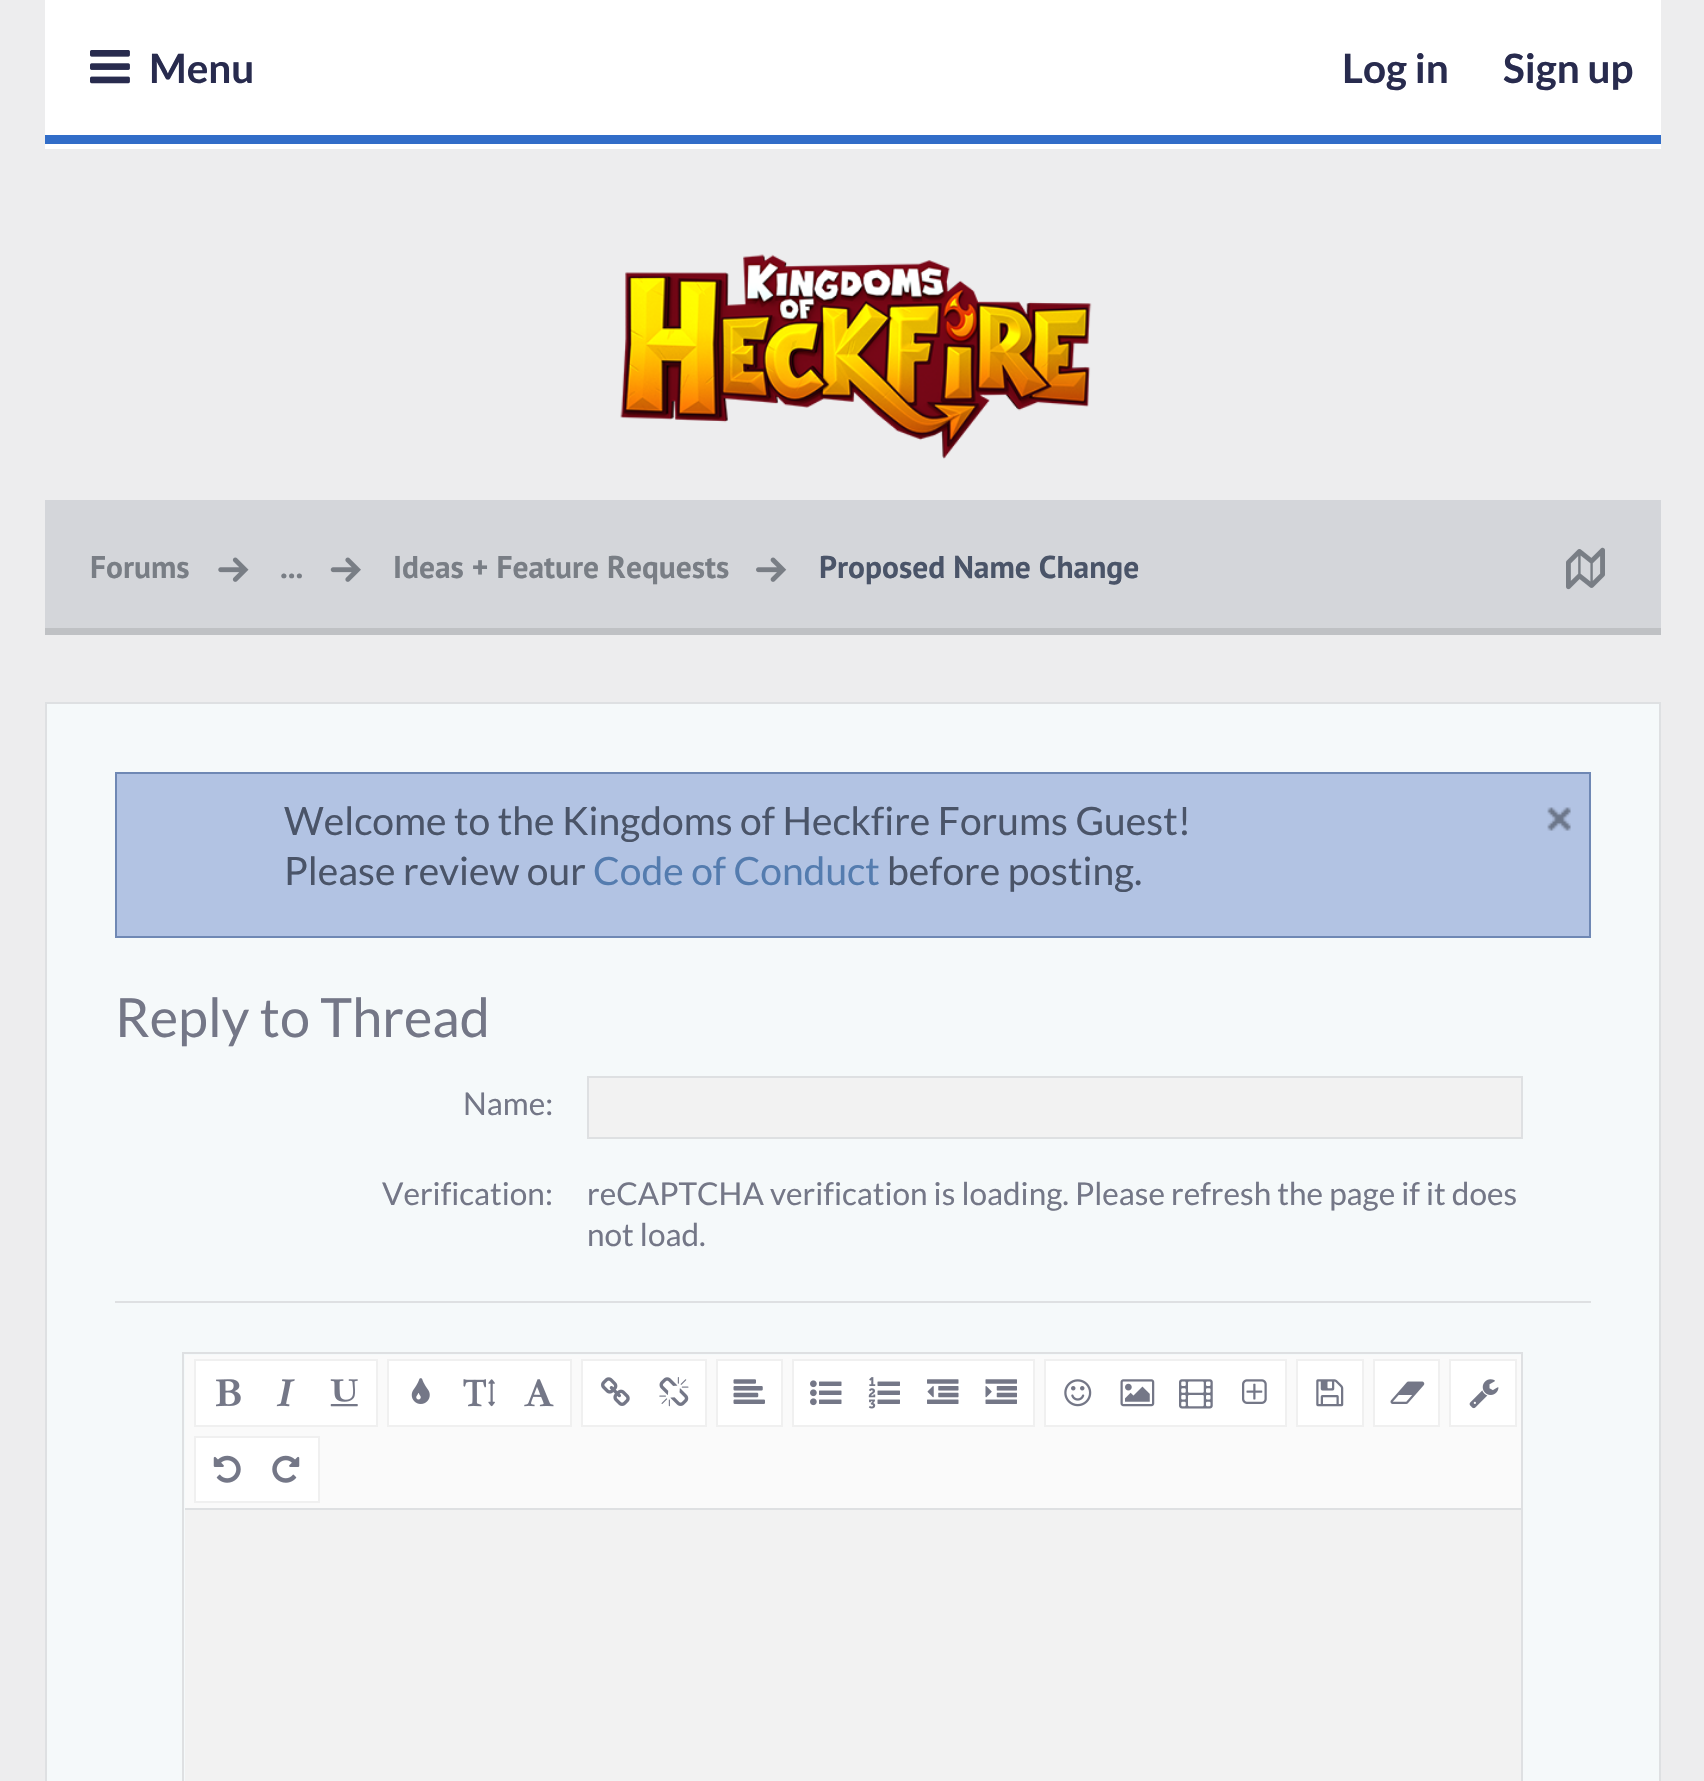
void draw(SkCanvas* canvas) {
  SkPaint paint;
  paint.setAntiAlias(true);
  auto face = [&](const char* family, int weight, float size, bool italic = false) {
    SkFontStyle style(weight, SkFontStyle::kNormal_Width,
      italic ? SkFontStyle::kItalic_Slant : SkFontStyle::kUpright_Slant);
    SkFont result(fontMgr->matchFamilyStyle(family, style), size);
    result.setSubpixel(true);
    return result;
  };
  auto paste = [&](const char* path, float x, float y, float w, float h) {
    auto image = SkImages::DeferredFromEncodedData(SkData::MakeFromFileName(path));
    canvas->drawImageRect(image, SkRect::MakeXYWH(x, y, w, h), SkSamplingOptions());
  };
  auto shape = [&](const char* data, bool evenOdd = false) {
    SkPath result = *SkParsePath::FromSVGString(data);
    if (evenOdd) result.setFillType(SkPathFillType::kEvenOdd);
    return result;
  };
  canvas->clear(0xffededee);
  paint.setColor(0xffffffff);
  canvas->drawPath(shape("M45 144V149H1661V5H1660V144Z"), paint);
  canvas->drawRect(SkRect::MakeXYWH(45, 0, 1616, 135), paint);
  paint.setColor(0xff316dc8);
  canvas->drawRect(SkRect::MakeXYWH(45, 135, 1616, 9), paint);
  paste("img/1.png", 90, 50, 40, 34);
  paste("img/2.png", 620, 254, 472, 205);
  paint.setColor(0xffd4d6da);
  canvas->drawRect(SkRect::MakeXYWH(45, 500, 1616, 128), paint);
  paint.setColor(0xffbfc1c4);
  canvas->drawRect(SkRect::MakeXYWH(45, 628, 1616, 7), paint);
  paste("img/3.png", 218, 557, 31, 25);
  paste("img/4.png", 330, 557, 31, 25);
  paste("img/5.png", 756, 557, 31, 25);
  paste("img/6.png", 1566, 547, 39, 43);
  paint.setColor(0xfff5f9fa);
  canvas->drawRect(SkRect::MakeXYWH(46, 703, 1614, 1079), paint);
  paint.setStroke(true);
  paint.setStrokeWidth(2);
  paint.setColor(0xffdee0e2);
  canvas->drawRect(SkRect::MakeXYWH(46, 703, 1614, 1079), paint);
  paint.setStroke(false);
  paint.setColor(0xffb2c3e3);
  canvas->drawRect(SkRect::MakeXYWH(116, 773, 1474, 164), paint);
  paint.setStroke(true);
  paint.setColor(0xff6f88b4);
  canvas->drawRect(SkRect::MakeXYWH(116, 773, 1474, 164), paint);
  paste("img/7.png", 1547, 807, 24, 24);
  paint.setStroke(false);
  paint.setColor(0xfff2f2f2);
  canvas->drawRect(SkRect::MakeXYWH(588, 1077, 934, 61), paint);
  paint.setStroke(true);
  paint.setColor(0xffdee0e2);
  canvas->drawRect(SkRect::MakeXYWH(588, 1077, 934, 61), paint);
  paint.setStroke(false);
  canvas->drawRect(SkRect::MakeXYWH(115, 1301, 1476, 2), paint);
  paint.setStroke(true);
  canvas->drawRect(SkRect::MakeXYWH(183, 1353, 1339, 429), paint);
  paint.setStroke(false);
  paint.setColor(0xfffafafa);
  canvas->drawRect(SkRect::MakeXYWH(185, 1355, 1336, 153), paint);
  paint.setColor(0xffdee0e2);
  canvas->drawRect(SkRect::MakeXYWH(185, 1508, 1336, 2), paint);
  paint.setColor(0xffffffff);
  canvas->drawRect(SkRect::MakeXYWH(195, 1360, 182, 66), paint);
  paint.setStroke(true);
  paint.setColor(0xfff0f0f0);
  canvas->drawRect(SkRect::MakeXYWH(195, 1360, 182, 66), paint);
  paste("img/8.png", 216, 1379, 25, 28);
  paste("img/9.png", 276, 1379, 19, 28);
  paste("img/10.png", 330, 1379, 28, 28);
  paint.setStroke(false);
  paint.setColor(0xffffffff);
  canvas->drawRect(SkRect::MakeXYWH(388, 1360, 183, 66), paint);
  paint.setStroke(true);
  paint.setColor(0xfff0f0f0);
  canvas->drawRect(SkRect::MakeXYWH(388, 1360, 183, 66), paint);
  paste("img/11.png", 411, 1378, 19, 26);
  paste("img/12.png", 463, 1379, 32, 28);
  paste("img/13.png", 524, 1379, 30, 28);
  paint.setStroke(false);
  paint.setColor(0xffffffff);
  canvas->drawRect(SkRect::MakeXYWH(582, 1360, 124, 66), paint);
  paint.setStroke(true);
  paint.setColor(0xfff0f0f0);
  canvas->drawRect(SkRect::MakeXYWH(582, 1360, 124, 66), paint);
  paste("img/14.png", 601, 1377, 29, 29);
  paste("img/15.png", 659, 1377, 30, 30);
  paint.setStroke(false);
  paint.setColor(0xffffffff);
  canvas->drawRect(SkRect::MakeXYWH(717, 1360, 65, 66), paint);
  paint.setStroke(true);
  paint.setColor(0xfff0f0f0);
  canvas->drawRect(SkRect::MakeXYWH(717, 1360, 65, 66), paint);
  paste("img/16.png", 733, 1379, 32, 25);
  paint.setStroke(false);
  paint.setColor(0xffffffff);
  canvas->drawRect(SkRect::MakeXYWH(793, 1360, 241, 66), paint);
  paint.setStroke(true);
  paint.setColor(0xfff0f0f0);
  canvas->drawRect(SkRect::MakeXYWH(793, 1360, 241, 66), paint);
  paste("img/17.png", 810, 1380, 32, 26);
  paste("img/18.png", 868, 1377, 32, 32);
  paste("img/19.png", 927, 1379, 32, 25);
  paste("img/20.png", 985, 1379, 32, 25);
  paint.setStroke(false);
  paint.setColor(0xffffffff);
  canvas->drawRect(SkRect::MakeXYWH(1045, 1360, 241, 66), paint);
  paint.setStroke(true);
  paint.setColor(0xfff0f0f0);
  canvas->drawRect(SkRect::MakeXYWH(1045, 1360, 241, 66), paint);
  paste("img/21.png", 1064, 1379, 28, 28);
  paste("img/22.png", 1120, 1379, 35, 28);
  paste("img/23.png", 1179, 1379, 34, 30);
  paste("img/24.png", 1242, 1379, 25, 25);
  paint.setStroke(false);
  paint.setColor(0xffffffff);
  canvas->drawRect(SkRect::MakeXYWH(1297, 1360, 66, 66), paint);
  paint.setStroke(true);
  paint.setColor(0xfff0f0f0);
  canvas->drawRect(SkRect::MakeXYWH(1297, 1360, 66, 66), paint);
  paste("img/25.png", 1316, 1379, 28, 28);
  paint.setStroke(false);
  paint.setColor(0xffffffff);
  canvas->drawRect(SkRect::MakeXYWH(1374, 1360, 65, 66), paint);
  paint.setStroke(true);
  paint.setColor(0xfff0f0f0);
  canvas->drawRect(SkRect::MakeXYWH(1374, 1360, 65, 66), paint);
  paste("img/26.png", 1390, 1381, 35, 23);
  paint.setStroke(false);
  paint.setColor(0xffffffff);
  canvas->drawRect(SkRect::MakeXYWH(1450, 1360, 66, 66), paint);
  paint.setStroke(true);
  paint.setColor(0xfff0f0f0);
  canvas->drawRect(SkRect::MakeXYWH(1450, 1360, 66, 66), paint);
  paste("img/27.png", 1469, 1379, 30, 30);
  paint.setStroke(false);
  paint.setColor(0xffffffff);
  canvas->drawRect(SkRect::MakeXYWH(195, 1437, 124, 65), paint);
  paint.setStroke(true);
  paint.setColor(0xfff0f0f0);
  canvas->drawRect(SkRect::MakeXYWH(195, 1437, 124, 65), paint);
  paste("img/28.png", 213, 1455, 28, 28);
  paste("img/29.png", 272, 1455, 28, 28);
  paint.setStroke(false);
  paint.setColor(0xfff2f2f2);
  canvas->drawRect(SkRect::MakeXYWH(185, 1510, 1336, 271), paint);
  auto f0 = face("Lato", 700, 40.5f);
  paint.setColor(0xff282b4e);
  {
    const struct { const char* s; float x, y; } items[] = {
      {"Menu", 149, 83},
      {"Log in", 1342, 83},
      {"Sign up", 1503, 83},
    };
    for (auto [s, x, y] : items) {
      canvas->drawString(s, x, y, f0, paint);
    }
  }
  auto f1 = face("PT Sans", 700, 31.5f);
  paint.setColor(0xff797e85);
  {
    const struct { const char* s; float x, y; } items[] = {
      {"Forums", 90, 578},
      {"...", 280, 578},
      {"Ideas + Feature Requests", 393, 578},
    };
    for (auto [s, x, y] : items) {
      canvas->drawString(s, x, y, f1, paint);
    }
  }
  paint.setColor(0xff4a5468);
  canvas->drawString("Proposed Name Change", 819, 578, f1, paint);
  auto f2 = face("Lato", 400, 39);
  canvas->drawString("Welcome to the Kingdoms of Heckfire Forums Guest!", 284, 835, f2, paint);
  canvas->drawString("Please review our", 284, 885, f2, paint);
  paint.setColor(0xff547caf);
  canvas->drawString("Code of Conduct", 593, 885, f2, paint);
  paint.setColor(0xff4a5468);
  canvas->drawString("before posting.", 887, 885, f2, paint);
  auto f3 = face("Lato", 400, 54);
  paint.setColor(0xff747787);
  canvas->drawString("Reply to Thread", 115, 1037, f3, paint);
  auto f4 = face("Lato", 400, 31.5f);
  {
    const struct { const char* s; float x, y; } items[] = {
      {"Name:", 463, 1115},
      {"Verification:", 382, 1205},
      {"reCAPTCHA verification is loading. Please refresh the page if it does", 587, 1205},
      {"not load.", 587, 1246},
    };
    for (auto [s, x, y] : items) {
      canvas->drawString(s, x, y, f4, paint);
    }
  }
}
